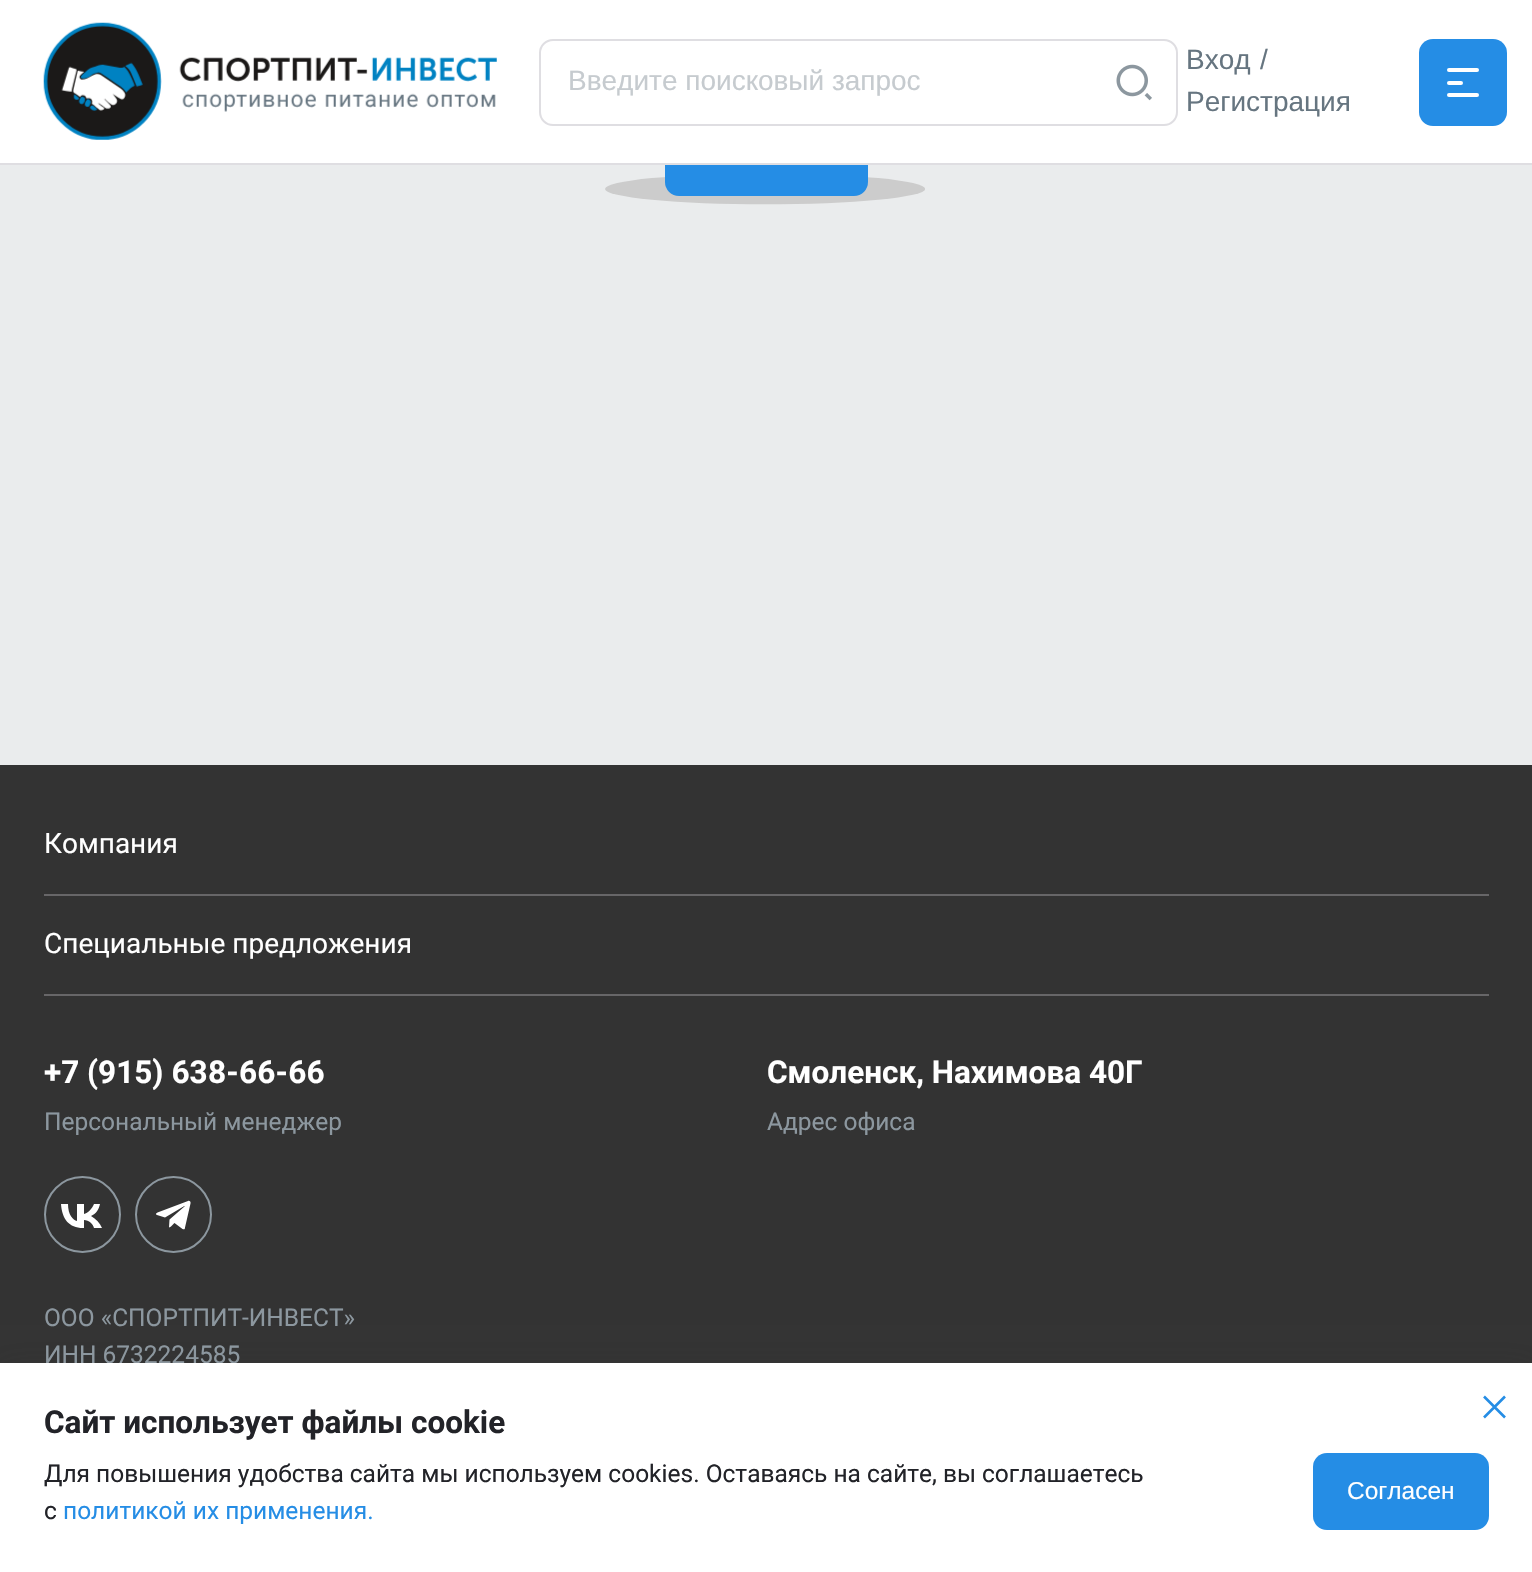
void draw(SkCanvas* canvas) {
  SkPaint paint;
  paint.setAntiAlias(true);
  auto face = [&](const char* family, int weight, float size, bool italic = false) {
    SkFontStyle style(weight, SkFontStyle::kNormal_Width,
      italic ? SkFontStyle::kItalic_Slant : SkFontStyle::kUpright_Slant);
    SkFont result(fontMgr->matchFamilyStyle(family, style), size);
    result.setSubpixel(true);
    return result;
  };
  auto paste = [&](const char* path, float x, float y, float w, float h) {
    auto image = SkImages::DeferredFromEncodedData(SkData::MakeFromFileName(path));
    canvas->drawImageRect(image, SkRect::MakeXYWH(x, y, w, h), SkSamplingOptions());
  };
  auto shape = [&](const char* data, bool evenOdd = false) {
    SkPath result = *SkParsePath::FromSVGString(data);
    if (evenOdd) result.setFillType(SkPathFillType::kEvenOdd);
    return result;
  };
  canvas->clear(0xffeaeced);
  paste("img/3.png", 605, 177, 320, 28);
  paint.setColor(0xff258de5);
  canvas->drawRoundRect(SkRect::MakeXYWH(665, 119, 203, 77), 14, 14, paint);
  paint.setColor(0xffffffff);
  canvas->drawRect(SkRect::MakeXYWH(0, 0, 1532, 163), paint);
  paint.setColor(0xffdfdee2);
  canvas->drawRect(SkRect::MakeXYWH(0, 163, 1532, 2), paint);
  paste("img/1.png", 43, 22, 454, 118);
  paint.setStroke(true);
  paint.setStrokeWidth(2);
  canvas->drawRoundRect(SkRect::MakeXYWH(540, 40, 637, 85), 13, 13, paint);
  paste("img/2.png", 1116, 64, 36, 37);
  paint.setStroke(false);
  paint.setColor(0xff258de5);
  canvas->drawRoundRect(SkRect::MakeXYWH(1419, 39, 88, 87), 14, 14, paint);
  paint.setColor(0xffffffff);
  canvas->drawRoundRect(SkRect::MakeXYWH(1447, 68, 32, 4), 2, 2, paint);
  canvas->drawRoundRect(SkRect::MakeXYWH(1447, 81, 16, 4), 2, 2, paint);
  canvas->drawRoundRect(SkRect::MakeXYWH(1447, 93, 32, 4), 2, 2, paint);
  {
    const struct { float x, y, w, h; SkColor color; } items[] = {
      {0, 765, 1532, 598, 0xff333333},
      {44, 894, 1445, 2, 0xff676668},
      {44, 994, 1445, 2, 0xff676668},
    };
    for (auto [x, y, w, h, color] : items) {
      paint.setColor(color);
      canvas->drawRect(SkRect::MakeXYWH(x, y, w, h), paint);
    }
  }
  paint.setStroke(true);
  paint.setColor(0xff8c979f);
  canvas->drawCircle(82.5f, 1214.5f, 37.5f, paint);
  paint.setStroke(false);
  paint.setColor(0xffffffff);
  canvas->drawPath(shape("M83 1228C69 1228 62 1219 61 1204H68C68 1215 73 1220 77 1221V1204H84V1214C88 1213 92 1209 94 1204H100C99 1209 96 1214 91 1216C96 1219 100 1223 102 1228H94C93 1224 89 1220 84 1220V1228Z"), paint);
  paint.setStroke(true);
  paint.setColor(0xff8c979f);
  canvas->drawCircle(173.5f, 1214.5f, 37.5f, paint);
  paint.setStroke(false);
  paint.setColor(0xffffffff);
  canvas->drawPath(shape("M169.5 1219.5L169 1227.5C170.5 1227.5 173 1224.5 174.5 1223L182.5 1229C184 1229.5 185 1229.5 185 1227.5L190.5 1203.5C191 1201.5 189.5 1200.5 188 1201L157.5 1212.5C155.5 1213.5 155.5 1214.5 157 1215L165 1217.5L183.5 1206.5C184 1205.5 185 1206 184.5 1206.5Z"), paint);
  paint.setColor(0x40333333);
  paint.setMaskFilter(SkMaskFilter::MakeBlur(kNormal_SkBlurStyle, 15));
  canvas->drawRect(SkRect::MakeXYWH(0, 1370, 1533, 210), paint);
  paint.setMaskFilter(nullptr);
  auto f0 = face("Liberation Sans", 400, 28);
  paint.setColor(0xffc6cbcf);
  canvas->drawString("Введите поисковый запрос", 568, 90, f0, paint);
  auto f1 = face("Arimo", 400, 28);
  paint.setColor(0xff667580);
  {
    const struct { const char* s; float x, y; } items[] = {
      {"Вход", 1186, 69},
      {"/", 1260, 69},
      {"Регистрация", 1186, 111},
    };
    for (auto [s, x, y] : items) {
      canvas->drawString(s, x, y, f1, paint);
    }
  }
  auto f2 = face("Roboto", 400, 28);
  paint.setColor(0xffffffff);
  canvas->drawString("Компания", 44, 853, f2, paint);
  canvas->drawString("Специальные предложения", 44, 953, f2, paint);
  auto f3 = face("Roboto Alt", 700, 31.5f);
  canvas->drawString("+7 (915) 638-66-66", 44, 1083, f3, paint);
  auto f4 = face("Roboto", 400, 24.5f);
  paint.setColor(0xff8c979f);
  canvas->drawString("Персональный менеджер", 44, 1130, f4, paint);
  auto f5 = face("Roboto", 700, 31.5f);
  paint.setColor(0xffffffff);
  canvas->drawString("Смоленск, Нахимова 40Г", 767, 1083, f5, paint);
  paint.setColor(0xff8c979f);
  {
    const struct { const char* s; float x, y; } items[] = {
      {"Адрес офиса", 767, 1130},
      {"ООО «СПОРТПИТ-ИНВЕСТ»", 44, 1326},
      {"ИНН 6732224585", 44, 1363},
    };
    for (auto [s, x, y] : items) {
      canvas->drawString(s, x, y, f4, paint);
    }
  }
  paint.setColor(0xffffffff);
  canvas->drawRect(SkRect::MakeXYWH(0, 1363, 1532, 209), paint);
  paint.setColor(0xff222328);
  canvas->drawString("Сайт использует файлы cookie", 44, 1433, f5, paint);
  canvas->drawString("Для повышения удобства сайта мы используем cookies. Оставаясь на сайте, вы соглашаетесь", 44, 1482, f4, paint);
  canvas->drawString("с", 44, 1519, f4, paint);
  paint.setColor(0xff258de5);
  canvas->drawString("политикой их применения.", 63, 1519, f4, paint);
  canvas->drawRoundRect(SkRect::MakeXYWH(1313, 1453, 176, 77), 14, 14, paint);
  auto f6 = face("Liberation Sans", 400, 24.5f);
  paint.setColor(0xffffffff);
  canvas->drawString("Согласен", 1347, 1499, f6, paint);
  paint.setStroke(true);
  paint.setStrokeWidth(2.6f);
  paint.setColor(0xff258de5);
  canvas->drawPath(shape("M1484 1396.5L1505 1417.5M1484 1417.5L1505 1396.5"), paint);
}
